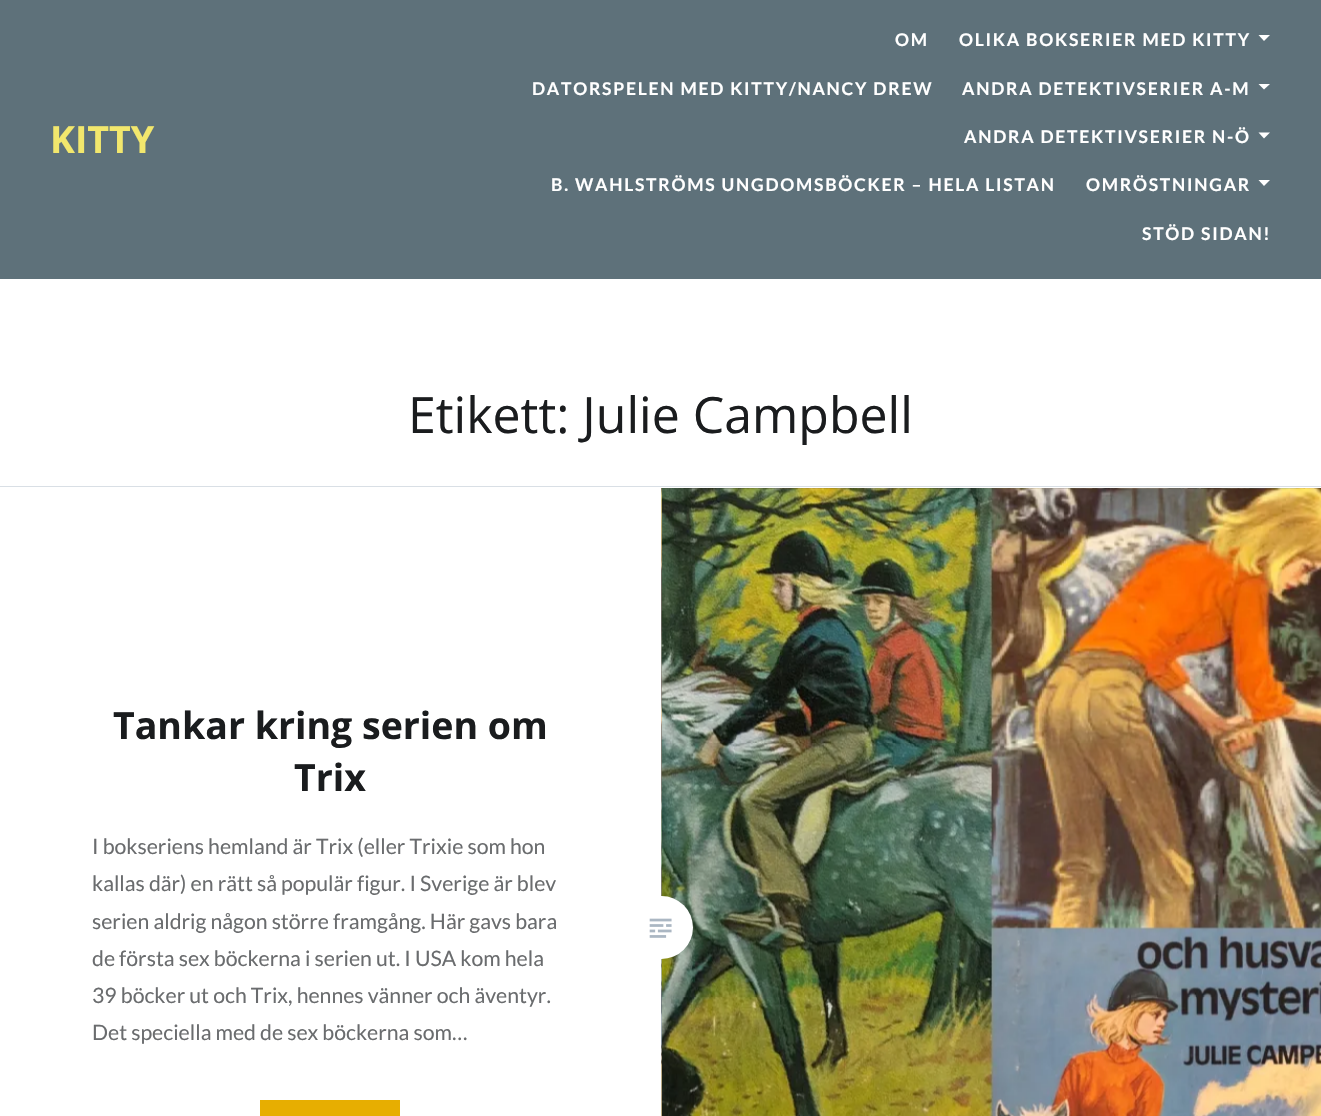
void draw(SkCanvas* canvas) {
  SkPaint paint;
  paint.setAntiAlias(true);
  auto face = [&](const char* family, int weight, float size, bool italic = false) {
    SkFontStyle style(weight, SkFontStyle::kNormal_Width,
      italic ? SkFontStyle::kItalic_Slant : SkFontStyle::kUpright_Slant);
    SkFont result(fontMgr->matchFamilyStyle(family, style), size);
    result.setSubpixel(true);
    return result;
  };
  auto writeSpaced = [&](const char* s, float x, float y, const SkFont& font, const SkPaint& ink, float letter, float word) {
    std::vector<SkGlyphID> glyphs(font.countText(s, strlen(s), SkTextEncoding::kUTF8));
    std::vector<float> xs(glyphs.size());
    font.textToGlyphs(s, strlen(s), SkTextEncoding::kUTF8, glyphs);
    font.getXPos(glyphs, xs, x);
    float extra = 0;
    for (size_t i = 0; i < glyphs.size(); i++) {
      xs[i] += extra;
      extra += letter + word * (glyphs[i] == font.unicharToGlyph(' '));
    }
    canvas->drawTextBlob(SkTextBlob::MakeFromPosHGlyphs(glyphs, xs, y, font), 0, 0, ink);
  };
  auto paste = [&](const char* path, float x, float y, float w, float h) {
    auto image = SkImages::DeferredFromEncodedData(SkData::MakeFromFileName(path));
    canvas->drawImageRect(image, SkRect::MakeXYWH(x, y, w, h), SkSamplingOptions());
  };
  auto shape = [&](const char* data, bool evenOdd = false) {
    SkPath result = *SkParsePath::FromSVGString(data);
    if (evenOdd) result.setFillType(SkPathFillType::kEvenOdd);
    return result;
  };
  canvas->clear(0xffffffff);
  paint.setColor(0xff5e717a);
  canvas->drawRect(SkRect::MakeXYWH(0, 0, 1321, 279), paint);
  paint.setColor(0xffffffff);
  canvas->drawPath(shape("M1258.5 35H1270L1264 41Z"), paint);
  canvas->drawPath(shape("M1258.5 84H1270L1264 89.5Z"), paint);
  canvas->drawPath(shape("M1258.5 132.5H1270L1264 138.5Z"), paint);
  canvas->drawPath(shape("M1258.5 180H1270L1264 186Z"), paint);
  paint.setColor(0xffd9dfe5);
  canvas->drawRect(SkRect::MakeXYWH(0, 486, 1321, 1), paint);
  paint.setColor(0xffe7ae01);
  canvas->drawRect(SkRect::MakeXYWH(260, 1100, 140, 16), paint);
  paste("img/2.png", 661, 488, 660, 628);
  paint.setColor(0xffffffff);
  canvas->drawCircle(661.5f, 927.5f, 31.5f, paint);
  paste("img/1.png", 649, 918, 23, 20);
  auto f0 = face("Open Sans", 700, 37.5f);
  paint.setColor(0xfff2e76d);
  canvas->drawString("KITTY", 50, 153, f0, paint);
  auto f1 = face("Lato", 700, 17.5f);
  paint.setColor(0xffffffff);
  {
    const struct { const char* s; float x, y; } items[] = {
      {"OM", 895, 46},
      {"OLIKA BOKSERIER MED KITTY", 959, 46},
      {"DATORSPELEN MED KITTY/NANCY DREW", 532, 95},
      {"ANDRA DETEKTIVSERIER A-M", 962, 95},
      {"ANDRA DETEKTIVSERIER N-Ö", 964, 143},
      {"B. WAHLSTRÖMS UNGDOMSBÖCKER – HELA LISTAN", 551, 191},
      {"OMRÖSTNINGAR", 1086, 191},
      {"STÖD SIDAN!", 1142, 240},
    };
    for (auto [s, x, y] : items) {
      writeSpaced(s, x, y, f1, paint, 1.75f, 0);
    }
  }
  auto f2 = face("Open Sans", 400, 50);
  paint.setColor(0xff1a1c1e);
  canvas->drawString("Etikett: Julie Campbell", 408, 433, f2, paint);
  canvas->drawString("Tankar kring serien om", 113, 739, f0, paint);
  canvas->drawString("Trix", 294, 791, f0, paint);
  auto f3 = face("Lato", 400, 21.25f);
  paint.setColor(0xff6a6c6e);
  {
    const struct { const char* s; float x, y; } items[] = {
      {"I bokseriens hemland är Trix (eller Trixie som hon", 92, 854},
      {"kallas där) en rätt så populär figur. I Sverige är blev", 92, 891},
      {"serien aldrig någon större framgång. Här gavs bara", 92, 929},
      {"de första sex böckerna i serien ut. I USA kom hela", 92, 966},
      {"39 böcker ut och Trix, hennes vänner och äventyr.", 92, 1003},
      {"Det speciella med de sex böckerna som…", 92, 1040},
    };
    for (auto [s, x, y] : items) {
      canvas->drawString(s, x, y, f3, paint);
    }
  }
}
